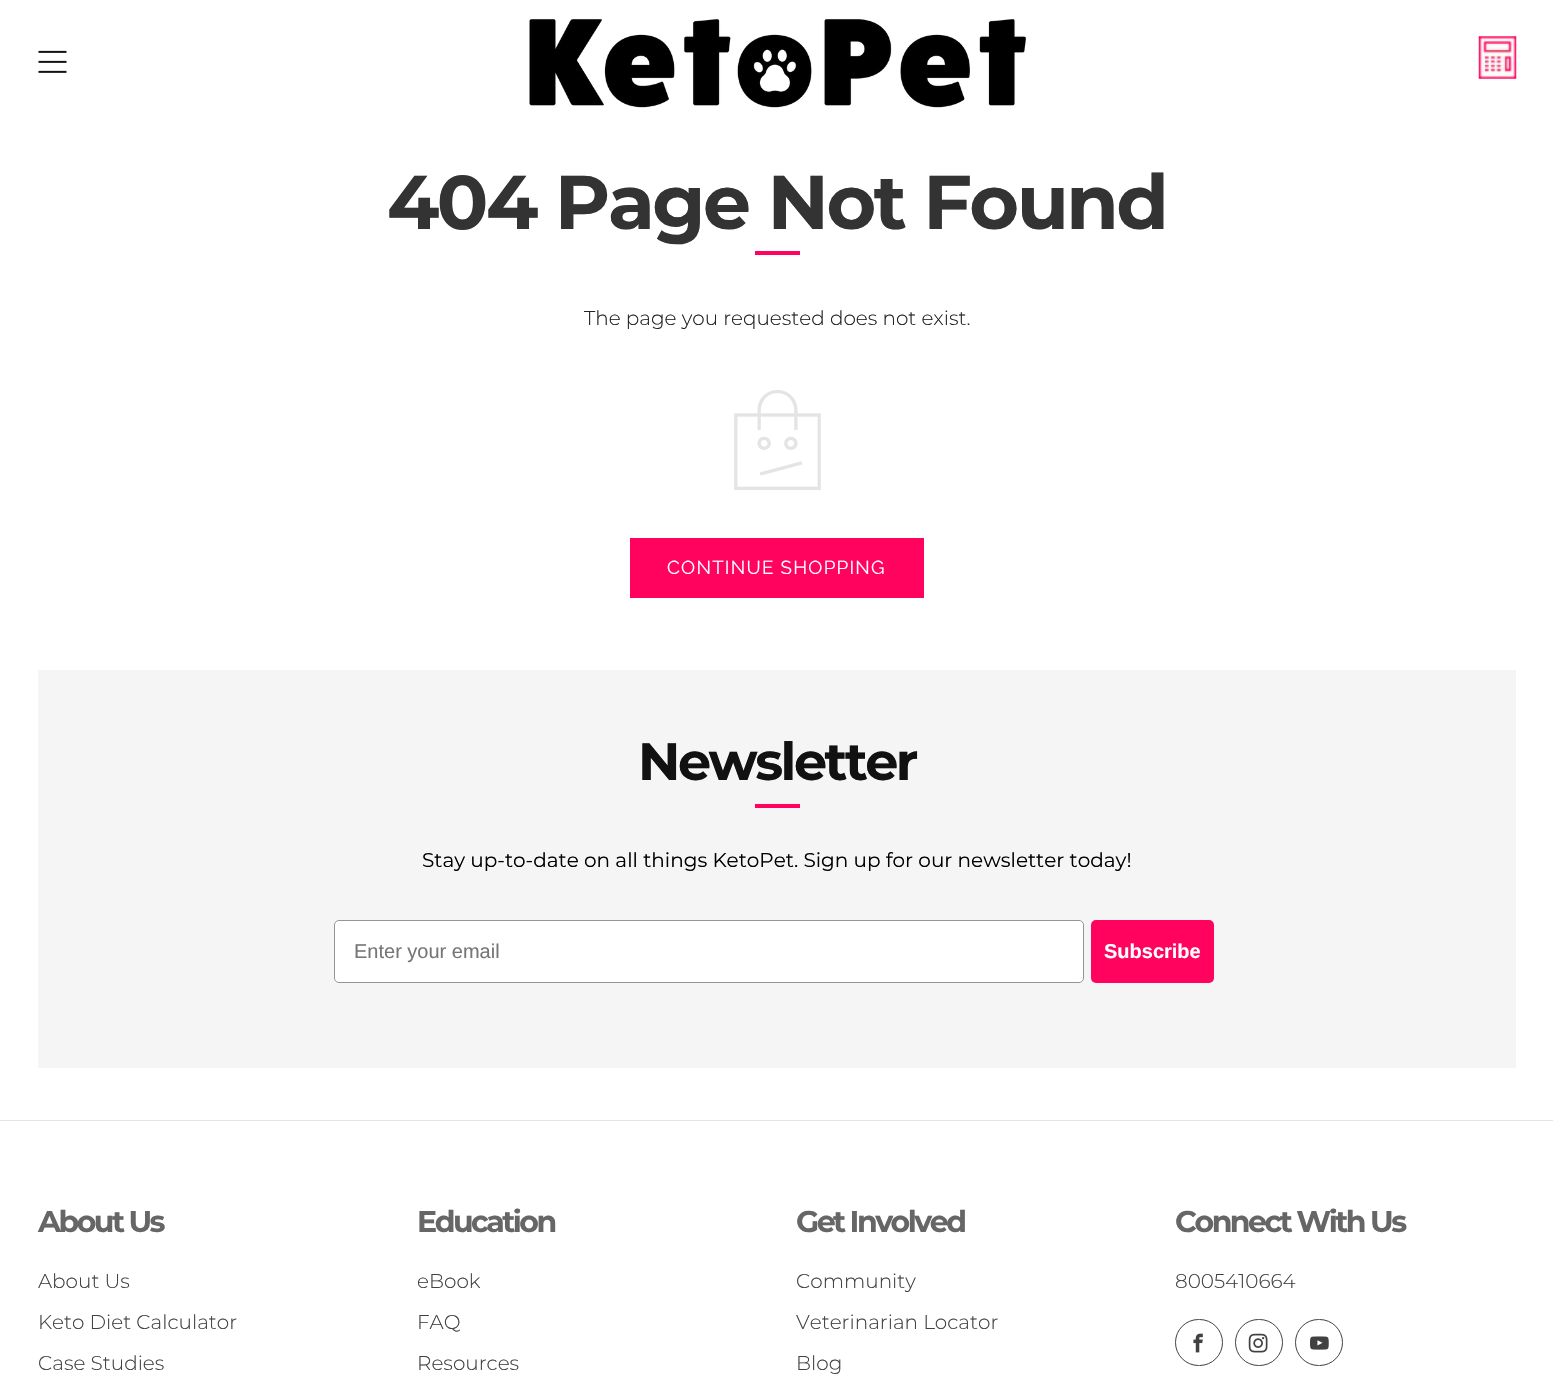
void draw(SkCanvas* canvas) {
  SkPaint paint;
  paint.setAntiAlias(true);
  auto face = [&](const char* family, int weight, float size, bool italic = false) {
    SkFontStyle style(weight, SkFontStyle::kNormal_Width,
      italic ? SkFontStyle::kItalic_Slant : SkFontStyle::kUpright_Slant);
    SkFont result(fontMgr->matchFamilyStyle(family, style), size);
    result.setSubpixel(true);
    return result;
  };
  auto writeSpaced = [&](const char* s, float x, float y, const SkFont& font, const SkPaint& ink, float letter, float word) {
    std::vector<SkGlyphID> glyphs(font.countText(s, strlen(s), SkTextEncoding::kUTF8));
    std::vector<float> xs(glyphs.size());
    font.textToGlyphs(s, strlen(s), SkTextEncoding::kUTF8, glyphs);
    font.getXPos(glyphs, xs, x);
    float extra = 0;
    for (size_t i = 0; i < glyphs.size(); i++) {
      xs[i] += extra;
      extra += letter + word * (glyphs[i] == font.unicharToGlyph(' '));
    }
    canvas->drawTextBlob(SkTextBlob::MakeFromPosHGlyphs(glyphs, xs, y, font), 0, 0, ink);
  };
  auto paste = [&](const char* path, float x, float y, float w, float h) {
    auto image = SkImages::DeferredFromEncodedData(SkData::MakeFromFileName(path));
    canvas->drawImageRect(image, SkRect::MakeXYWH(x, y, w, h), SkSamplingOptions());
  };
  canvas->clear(0xffffffff);
  paste("img/1.png", 38, 50, 29, 23);
  paste("img/2.png", 529, 19, 498, 89);
  paste("img/3.png", 1478, 36, 39, 43);
  paint.setColor(0xffff035e);
  canvas->drawRect(SkRect::MakeXYWH(755, 251, 45, 4), paint);
  paste("img/4.png", 734, 390, 87, 100);
  {
    const struct { float x, y, w, h; SkColor color; } items[] = {
      {630, 538, 294, 60, 0xffff035e},
      {38, 670, 1478, 398, 0xfff5f5f5},
      {755, 804, 45, 4, 0xffff035e},
    };
    for (auto [x, y, w, h, color] : items) {
      paint.setColor(color);
      canvas->drawRect(SkRect::MakeXYWH(x, y, w, h), paint);
    }
  }
  paint.setColor(0xffffffff);
  canvas->drawRoundRect(SkRect::MakeXYWH(334.5f, 920.5f, 749, 62), 4.5f, 4.5f, paint);
  paint.setStroke(true);
  paint.setStrokeWidth(1);
  paint.setColor(0xff949596);
  canvas->drawRoundRect(SkRect::MakeXYWH(334.5f, 920.5f, 749, 62), 4.5f, 4.5f, paint);
  paint.setStroke(false);
  paint.setColor(0xffff035e);
  canvas->drawRoundRect(SkRect::MakeXYWH(1091, 920, 123, 63), 5, 5, paint);
  paint.setColor(0xffe4e4e4);
  canvas->drawRect(SkRect::MakeXYWH(0, 1120, 1553, 1), paint);
  paint.setStroke(true);
  paint.setColor(0xff414141);
  canvas->drawRoundRect(SkRect::MakeXYWH(1175.5f, 1319.5f, 47, 46), 23, 23, paint);
  paste("img/5.png", 1193, 1333, 10, 20);
  canvas->drawRoundRect(SkRect::MakeXYWH(1235.5f, 1319.5f, 47, 46), 23, 23, paint);
  paste("img/6.png", 1248, 1333, 20, 20);
  canvas->drawRoundRect(SkRect::MakeXYWH(1295.5f, 1319.5f, 47, 46), 23, 23, paint);
  paste("img/7.png", 1310, 1336, 19, 14);
  auto f0 = face("Montserrat", 700, 76);
  paint.setStroke(false);
  paint.setColor(0xff333333);
  writeSpaced("404 Page Not Found", 387, 229, f0, paint, -2.5f, 0);
  auto f1 = face("Montserrat", 300, 20);
  paint.setColor(0xff212121);
  canvas->drawString("The page you requested does not exist.", 584, 325, f1, paint);
  auto f2 = face("Raleway", 400, 18.75f);
  paint.setColor(0xffffffff);
  writeSpaced("CONTINUE SHOPPING", 667, 574, f2, paint, 1.25f, 0);
  auto f3 = face("Montserrat", 700, 52.5f);
  paint.setColor(0xff111111);
  writeSpaced("Newsletter", 638, 780, f3, paint, -2.5f, 0);
  auto f4 = face("Montserrat", 100, 20);
  paint.setColor(0xff000000);
  canvas->drawString("Stay up-to-date on all things KetoPet. Sign up for our newsletter today!", 422, 867, f4, paint);
  auto f5 = face("Liberation Sans", 400, 20);
  paint.setColor(0xff767676);
  canvas->drawString("Enter your email", 354, 958, f5, paint);
  auto f6 = face("Liberation Sans", 700, 20);
  paint.setColor(0xffffffff);
  canvas->drawString("Subscribe", 1104, 958, f6, paint);
  auto f7 = face("Montserrat", 700, 30);
  paint.setColor(0xff666666);
  writeSpaced("About Us", 38, 1232, f7, paint, -2.5f, 0);
  paint.setColor(0xff414141);
  {
    const struct { const char* s; float x, y; } items[] = {
      {"About Us", 38, 1288},
      {"Keto Diet Calculator", 38, 1329},
      {"Case Studies", 38, 1370},
    };
    for (auto [s, x, y] : items) {
      canvas->drawString(s, x, y, f1, paint);
    }
  }
  paint.setColor(0xff666666);
  writeSpaced("Education", 417, 1232, f7, paint, -2.5f, 0);
  paint.setColor(0xff414141);
  {
    const struct { const char* s; float x, y; } items[] = {
      {"eBook", 417, 1288},
      {"FAQ", 417, 1329},
      {"Resources", 417, 1370},
    };
    for (auto [s, x, y] : items) {
      canvas->drawString(s, x, y, f1, paint);
    }
  }
  paint.setColor(0xff666666);
  writeSpaced("Get Involved", 796, 1232, f7, paint, -2.5f, 0);
  paint.setColor(0xff414141);
  {
    const struct { const char* s; float x, y; } items[] = {
      {"Community", 796, 1288},
      {"Veterinarian Locator", 796, 1329},
      {"Blog", 796, 1370},
    };
    for (auto [s, x, y] : items) {
      canvas->drawString(s, x, y, f1, paint);
    }
  }
  paint.setColor(0xff666666);
  writeSpaced("Connect With Us", 1175, 1232, f7, paint, -2.5f, 0);
  paint.setColor(0xff414141);
  canvas->drawString("8005410664", 1175, 1288, f1, paint);
}
